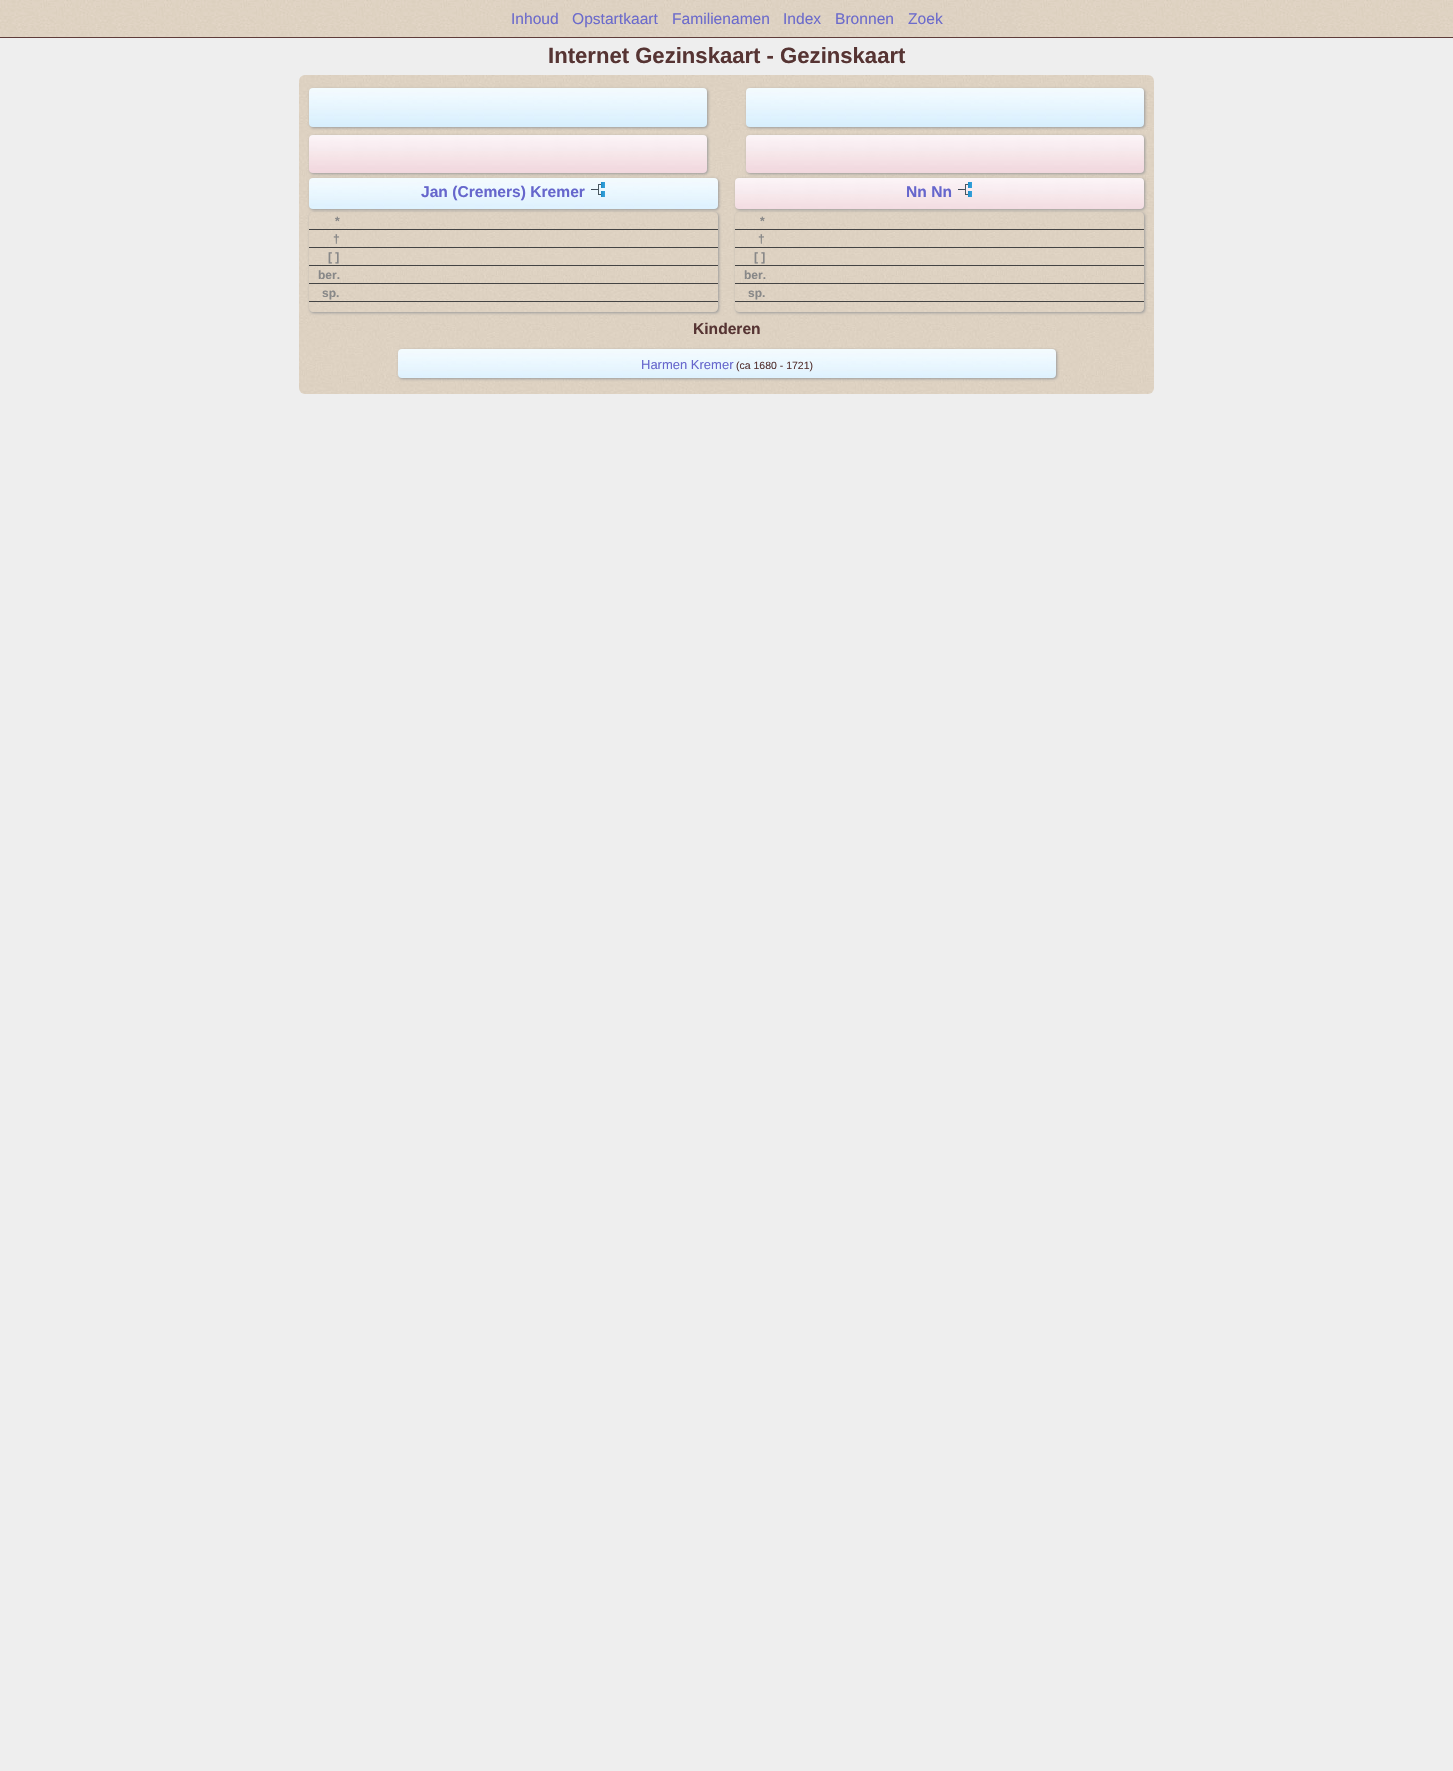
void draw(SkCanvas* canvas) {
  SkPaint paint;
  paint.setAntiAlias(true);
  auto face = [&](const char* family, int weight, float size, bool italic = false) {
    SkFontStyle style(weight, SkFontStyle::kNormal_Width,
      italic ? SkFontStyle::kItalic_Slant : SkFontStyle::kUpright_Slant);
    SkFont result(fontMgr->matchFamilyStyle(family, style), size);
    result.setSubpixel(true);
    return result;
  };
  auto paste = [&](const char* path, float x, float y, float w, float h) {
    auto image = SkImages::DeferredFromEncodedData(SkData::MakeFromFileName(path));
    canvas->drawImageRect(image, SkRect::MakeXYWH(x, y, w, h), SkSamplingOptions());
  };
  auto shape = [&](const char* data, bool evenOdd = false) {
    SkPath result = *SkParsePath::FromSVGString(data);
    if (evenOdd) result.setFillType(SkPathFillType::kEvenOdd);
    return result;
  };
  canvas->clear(0xffeeeeee);
  paste("img/1.png", 0, 0, 1453, 38);
  paste("img/2.png", 0, 0, 1453, 38);
  paint.setColor(0xf2563433);
  canvas->drawRect(SkRect::MakeXYWH(0, 37, 1453, 1), paint);
  paste("img/3.png", 299, 75, 855, 319);
  paint.setColor(0xff9b9b9b);
  paint.setMaskFilter(SkMaskFilter::MakeBlur(kNormal_SkBlurStyle, 1.5f));
  canvas->drawRoundRect(SkRect::MakeXYWH(310, 89, 398, 39), 4, 4, paint);
  paint.setMaskFilter(nullptr);
  paste("img/4.png", 309, 88, 398, 39);
  paint.setMaskFilter(SkMaskFilter::MakeBlur(kNormal_SkBlurStyle, 1.5f));
  canvas->drawRoundRect(SkRect::MakeXYWH(747, 89, 398, 39), 4, 4, paint);
  paint.setMaskFilter(nullptr);
  paste("img/5.png", 746, 88, 398, 39);
  paint.setMaskFilter(SkMaskFilter::MakeBlur(kNormal_SkBlurStyle, 1.5f));
  canvas->drawRoundRect(SkRect::MakeXYWH(310, 136, 398, 38), 4, 4, paint);
  paint.setMaskFilter(nullptr);
  paste("img/6.png", 309, 135, 398, 38);
  paint.setMaskFilter(SkMaskFilter::MakeBlur(kNormal_SkBlurStyle, 1.5f));
  canvas->drawRoundRect(SkRect::MakeXYWH(747, 136, 398, 38), 4, 4, paint);
  paint.setMaskFilter(nullptr);
  paste("img/7.png", 746, 135, 398, 38);
  paint.setMaskFilter(SkMaskFilter::MakeBlur(kNormal_SkBlurStyle, 1.5f));
  canvas->drawRoundRect(SkRect::MakeXYWH(310, 179, 409, 31), 4, 4, paint);
  paint.setMaskFilter(nullptr);
  paste("img/8.png", 309, 178, 409, 31);
  paste("img/9.png", 591, 182, 14, 15);
  paint.setMaskFilter(SkMaskFilter::MakeBlur(kNormal_SkBlurStyle, 1.5f));
  canvas->drawRoundRect(SkRect::MakeXYWH(736, 179, 409, 31), 4, 4, paint);
  paint.setMaskFilter(nullptr);
  paste("img/10.png", 735, 178, 409, 31);
  paste("img/11.png", 958, 182, 14, 15);
  canvas->save();
  canvas->clipPath(shape("M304 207H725V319H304ZM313 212H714C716 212 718 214 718 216V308C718 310 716 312 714 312H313C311 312 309 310 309 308V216C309 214 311 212 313 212Z", true), true);
  paint.setMaskFilter(SkMaskFilter::MakeBlur(kNormal_SkBlurStyle, 1.5f));
  canvas->drawRoundRect(SkRect::MakeXYWH(310, 213, 409, 100), 4, 4, paint);
  paint.setMaskFilter(nullptr);
  canvas->restore();
  {
    const struct { float x, y, w, h; SkColor color; } items[] = {
      {309, 229, 409, 1, 0xff444444},
      {309, 247, 409, 1, 0xff444444},
      {309, 265, 409, 1, 0xff444444},
      {309, 283, 409, 1, 0xff444444},
      {309, 301, 409, 1, 0xff444444},
    };
    for (auto [x, y, w, h, color] : items) {
      paint.setColor(color);
      canvas->drawRect(SkRect::MakeXYWH(x, y, w, h), paint);
    }
  }
  canvas->save();
  canvas->clipPath(shape("M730 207H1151V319H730ZM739 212H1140C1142 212 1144 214 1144 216V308C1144 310 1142 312 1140 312H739C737 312 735 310 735 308V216C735 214 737 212 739 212Z", true), true);
  paint.setColor(0xff9b9b9b);
  paint.setMaskFilter(SkMaskFilter::MakeBlur(kNormal_SkBlurStyle, 1.5f));
  canvas->drawRoundRect(SkRect::MakeXYWH(736, 213, 409, 100), 4, 4, paint);
  paint.setMaskFilter(nullptr);
  canvas->restore();
  {
    const struct { float x, y, w, h; SkColor color; } items[] = {
      {735, 229, 409, 1, 0xff444444},
      {735, 247, 409, 1, 0xff444444},
      {735, 265, 409, 1, 0xff444444},
      {735, 283, 409, 1, 0xff444444},
      {735, 301, 409, 1, 0xff444444},
    };
    for (auto [x, y, w, h, color] : items) {
      paint.setColor(color);
      canvas->drawRect(SkRect::MakeXYWH(x, y, w, h), paint);
    }
  }
  paint.setColor(0xff9b9b9b);
  paint.setMaskFilter(SkMaskFilter::MakeBlur(kNormal_SkBlurStyle, 1.5f));
  canvas->drawRoundRect(SkRect::MakeXYWH(399, 350, 658, 29), 4, 4, paint);
  paint.setMaskFilter(nullptr);
  paste("img/12.png", 398, 349, 658, 29);
  auto f0 = face("Liberation Sans", 400, 15.6f);
  paint.setColor(0xff6c6bcb);
  {
    const struct { const char* s; float x, y; } items[] = {
      {"Inhoud", 511, 24},
      {"Opstartkaart", 572, 24},
      {"Familienamen", 672, 24},
      {"Index", 783, 24},
      {"Bronnen", 835, 24},
      {"Zoek", 908, 24},
    };
    for (auto [s, x, y] : items) {
      canvas->drawString(s, x, y, f0, paint);
    }
  }
  auto f1 = face("Liberation Sans", 700, 22.1f);
  paint.setColor(0xff563433);
  canvas->drawString("Internet Gezinskaart - Gezinskaart", 548, 63, f1, paint);
  auto f2 = face("Liberation Sans", 700, 15.6f);
  paint.setColor(0xff6666cc);
  canvas->drawString("Jan (Cremers) Kremer", 421, 197, f2, paint);
  canvas->drawString("Nn Nn", 906, 197, f2, paint);
  auto f3 = face("Liberation Sans", 700, 12);
  paint.setColor(0xff888888);
  {
    const struct { const char* s; float x, y; } items[] = {
      {"*", 335, 225},
      {"†", 333, 243},
      {"[ ]", 328, 261},
      {"ber.", 318, 279},
      {"sp.", 322, 297},
      {"*", 760, 225},
      {"†", 758, 243},
      {"[ ]", 754, 261},
      {"ber.", 744, 279},
      {"sp.", 748, 297},
    };
    for (auto [s, x, y] : items) {
      canvas->drawString(s, x, y, f3, paint);
    }
  }
  paint.setColor(0xff563433);
  canvas->drawString("Kinderen", 693, 334, f2, paint);
  auto f4 = face("Liberation Sans", 400, 13);
  paint.setColor(0xff6666cc);
  canvas->drawString("Harmen Kremer", 641, 369, f4, paint);
  auto f5 = face("Liberation Sans", 400, 10.5f);
  paint.setColor(0xff563433);
  canvas->drawString("(ca 1680 - 1721)", 736, 369, f5, paint);
}
